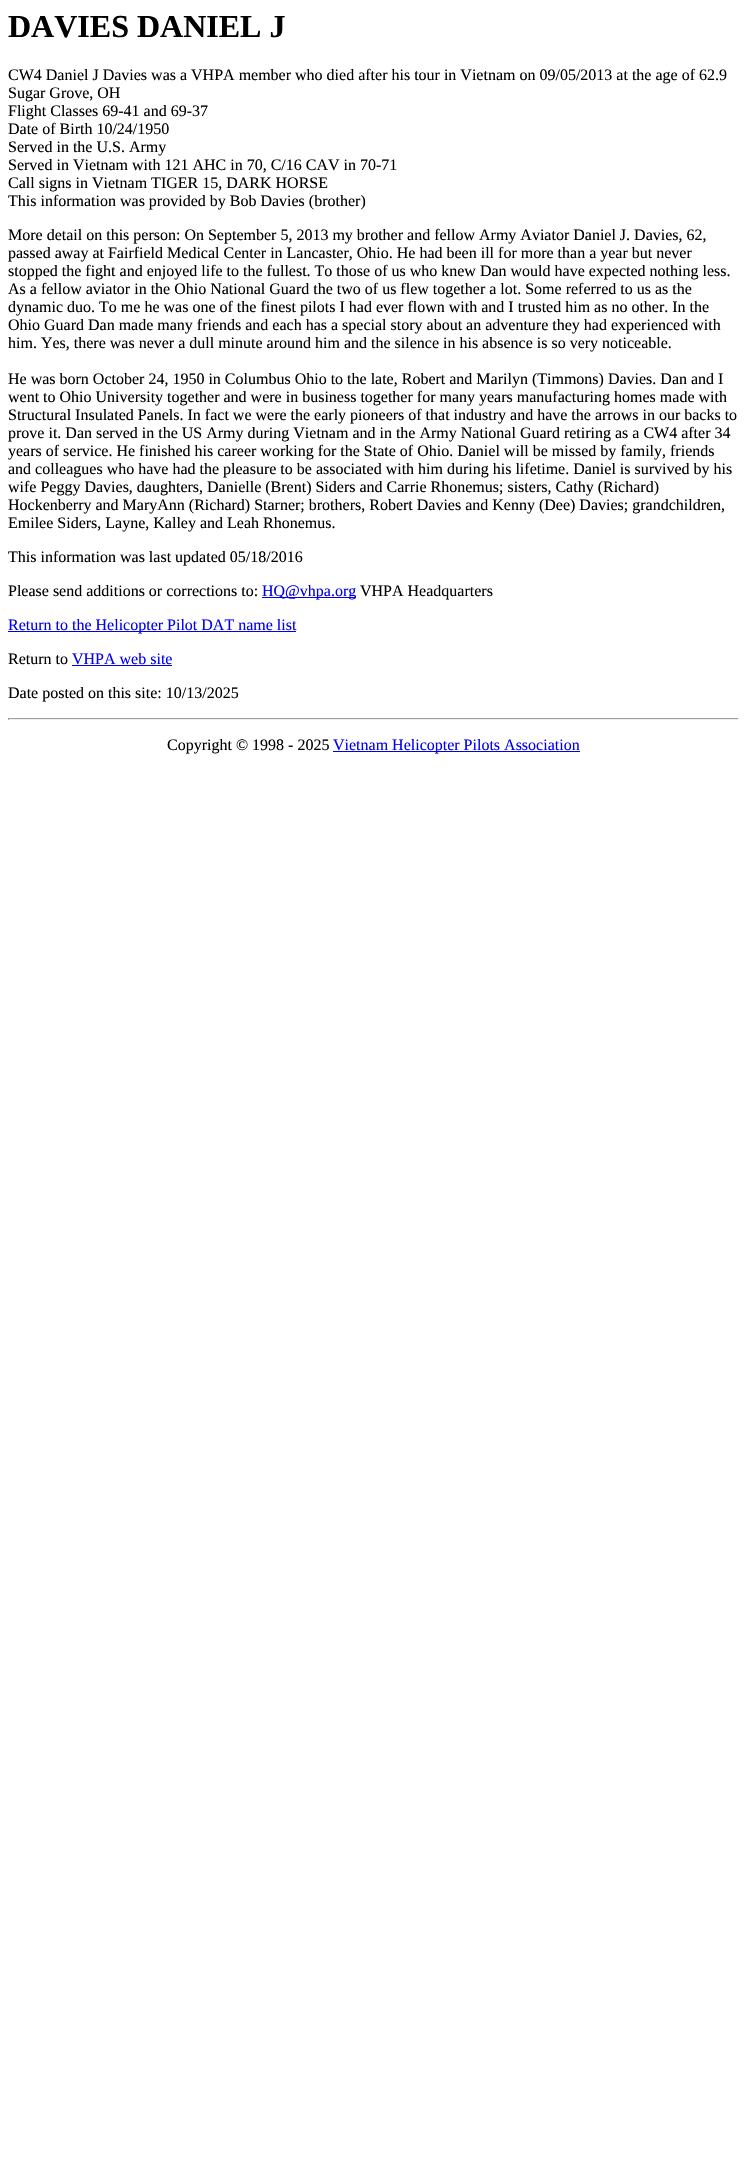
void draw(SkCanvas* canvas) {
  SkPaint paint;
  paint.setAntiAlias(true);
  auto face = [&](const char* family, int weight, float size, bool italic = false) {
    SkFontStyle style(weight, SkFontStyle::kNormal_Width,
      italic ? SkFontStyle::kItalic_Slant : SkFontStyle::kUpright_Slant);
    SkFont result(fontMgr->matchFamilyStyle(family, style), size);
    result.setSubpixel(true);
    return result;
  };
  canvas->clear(0xffffffff);
  {
    const struct { float x, y, w, h; SkColor color; } items[] = {
      {262, 597, 94, 1, 0xff0000ee},
      {8, 631, 288, 1, 0xff0000ee},
      {72, 665, 100, 1, 0xff0000ee},
      {8, 718, 731, 1, 0xff9f9f9f},
      {738, 718, 1, 2, 0xffeeeeee},
      {8, 719, 731, 1, 0xffeeeeee},
      {8, 718, 1, 2, 0xff9f9f9f},
      {333, 751, 247, 1, 0xff0000ee},
    };
    for (auto [x, y, w, h, color] : items) {
      paint.setColor(color);
      canvas->drawRect(SkRect::MakeXYWH(x, y, w, h), paint);
    }
  }
  auto f0 = face("Liberation Serif", 700, 32);
  paint.setColor(0xff000000);
  canvas->drawString("DAVIES DANIEL J", 8, 37, f0, paint);
  auto f1 = face("Liberation Serif", 400, 16);
  {
    const struct { const char* s; float x, y; } items[] = {
      {"CW4 Daniel J Davies was a VHPA member who died after his tour in Vietnam on 09/05/2013 at the age of 62.9", 8, 80},
      {"Sugar Grove, OH", 8, 98},
      {"Flight Classes 69-41 and 69-37", 8, 116},
      {"Date of Birth 10/24/1950", 8, 134},
      {"Served in the U.S. Army", 8, 152},
      {"Served in Vietnam with 121 AHC in 70, C/16 CAV in 70-71", 8, 170},
      {"Call signs in Vietnam TIGER 15, DARK HORSE", 8, 188},
      {"This information was provided by Bob Davies (brother)", 8, 206},
      {"More detail on this person: On September 5, 2013 my brother and fellow Army Aviator Daniel J. Davies, 62,", 8, 240},
      {"passed away at Fairfield Medical Center in Lancaster, Ohio. He had been ill for more than a year but never", 8, 258},
      {"stopped the fight and enjoyed life to the fullest. To those of us who knew Dan would have expected nothing less.", 8, 276},
      {"As a fellow aviator in the Ohio National Guard the two of us flew together a lot. Some referred to us as the", 8, 294},
      {"dynamic duo. To me he was one of the finest pilots I had ever flown with and I trusted him as no other. In the", 8, 312},
      {"Ohio Guard Dan made many friends and each has a special story about an adventure they had experienced with", 8, 330},
      {"him. Yes, there was never a dull minute around him and the silence in his absence is so very noticeable.", 8, 348},
      {"He was born October 24, 1950 in Columbus Ohio to the late, Robert and Marilyn (Timmons) Davies. Dan and I", 8, 384},
      {"went to Ohio University together and were in business together for many years manufacturing homes made with", 8, 402},
      {"Structural Insulated Panels. In fact we were the early pioneers of that industry and have the arrows in our backs to", 8, 420},
      {"prove it. Dan served in the US Army during Vietnam and in the Army National Guard retiring as a CW4 after 34", 8, 438},
      {"years of service. He finished his career working for the State of Ohio. Daniel will be missed by family, friends", 8, 456},
      {"and colleagues who have had the pleasure to be associated with him during his lifetime. Daniel is survived by his", 8, 474},
      {"wife Peggy Davies, daughters, Danielle (Brent) Siders and Carrie Rhonemus; sisters, Cathy (Richard)", 8, 492},
      {"Hockenberry and MaryAnn (Richard) Starner; brothers, Robert Davies and Kenny (Dee) Davies; grandchildren,", 8, 510},
      {"Emilee Siders, Layne, Kalley and Leah Rhonemus.", 8, 528},
      {"This information was last updated 05/18/2016", 8, 562},
      {"Please send additions or corrections to:", 8, 596},
    };
    for (auto [s, x, y] : items) {
      canvas->drawString(s, x, y, f1, paint);
    }
  }
  paint.setColor(0xff0000ee);
  canvas->drawString("HQ@vhpa.org", 262, 596, f1, paint);
  paint.setColor(0xff000000);
  canvas->drawString("VHPA Headquarters", 360, 596, f1, paint);
  paint.setColor(0xff0000ee);
  canvas->drawString("Return to the Helicopter Pilot DAT name list", 8, 630, f1, paint);
  paint.setColor(0xff000000);
  canvas->drawString("Return to", 8, 664, f1, paint);
  paint.setColor(0xff0000ee);
  canvas->drawString("VHPA web site", 72, 664, f1, paint);
  paint.setColor(0xff000000);
  canvas->drawString("Date posted on this site: 10/13/2025", 8, 698, f1, paint);
  canvas->drawString("Copyright © 1998 - 2025", 167, 750, f1, paint);
  paint.setColor(0xff0000ee);
  canvas->drawString("Vietnam Helicopter Pilots Association", 333, 750, f1, paint);
}
